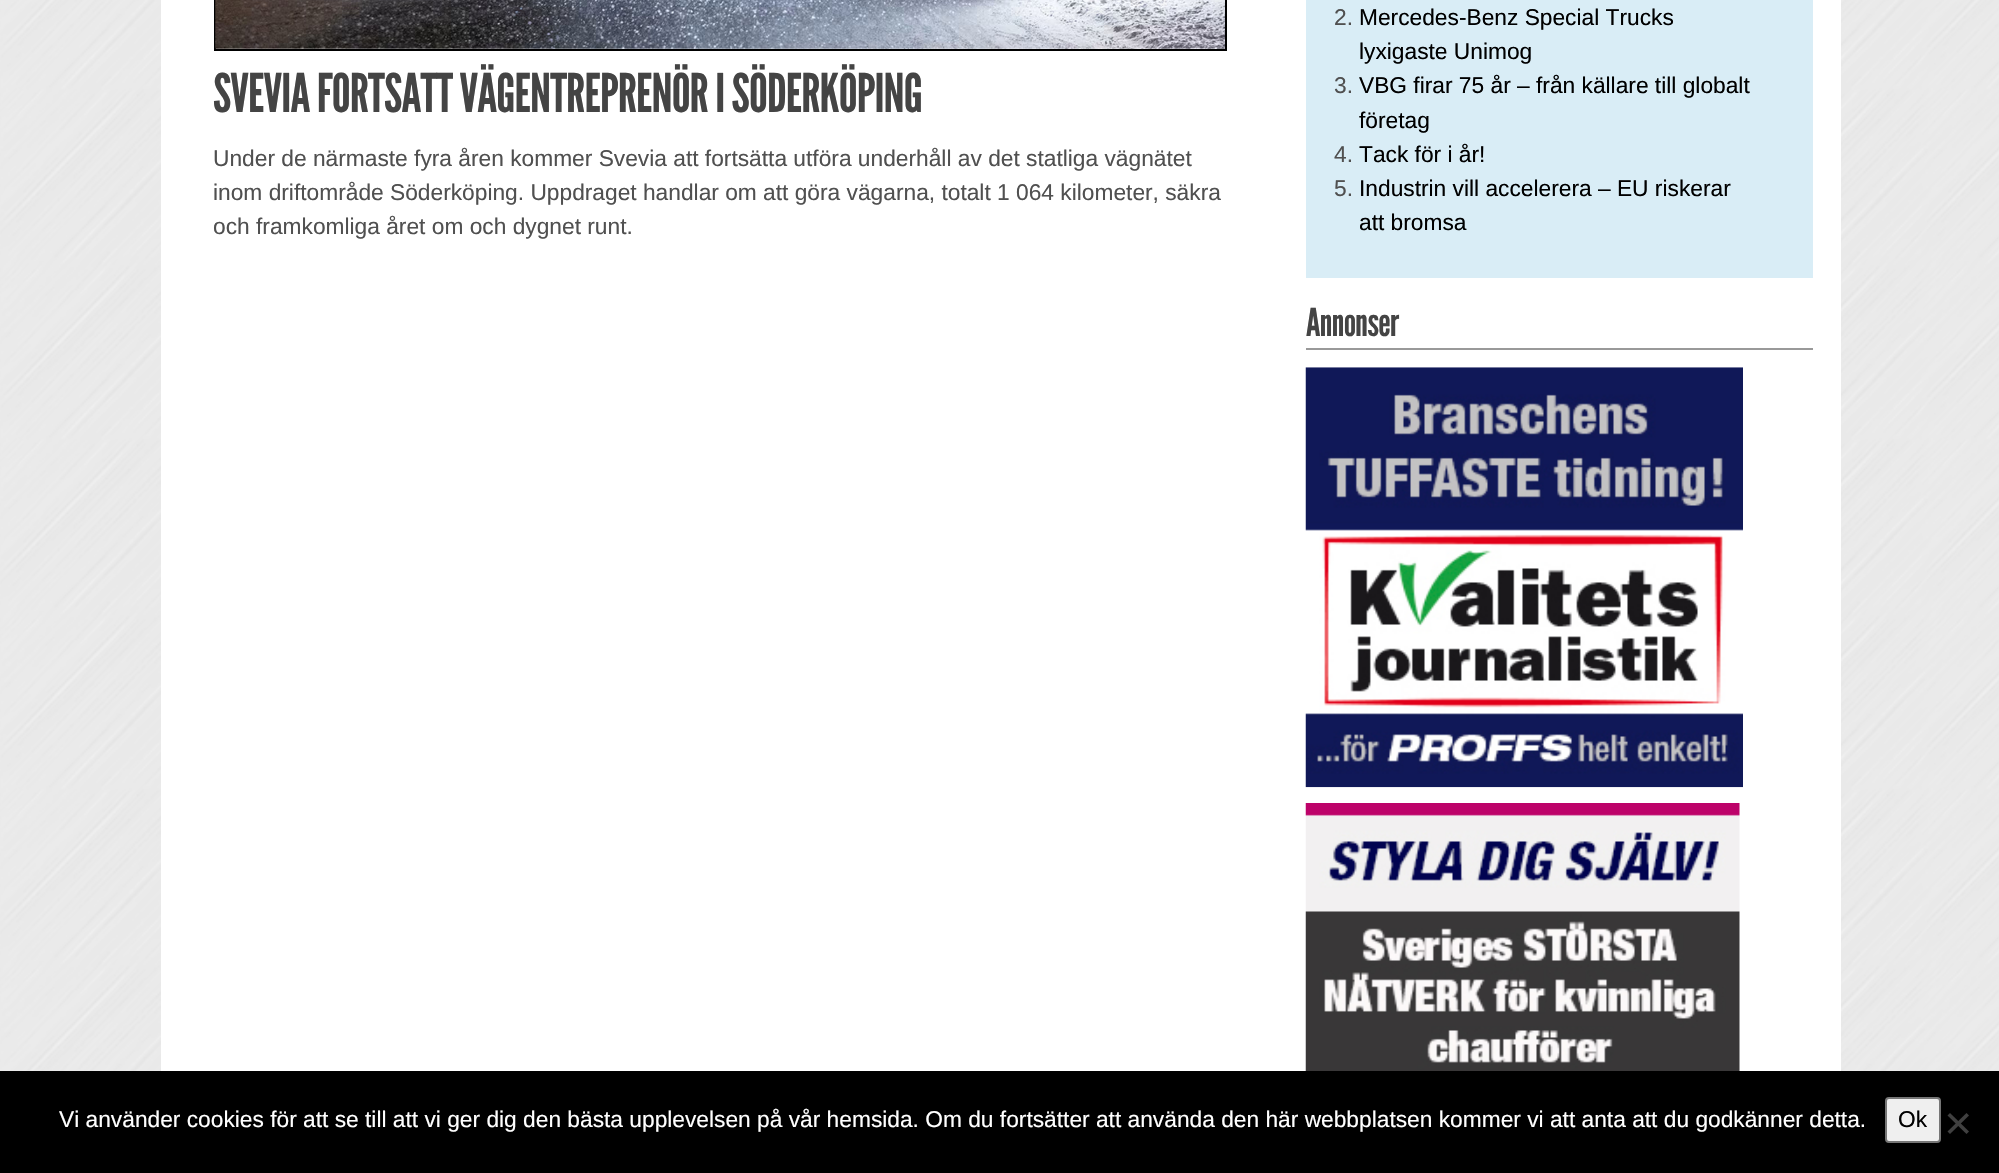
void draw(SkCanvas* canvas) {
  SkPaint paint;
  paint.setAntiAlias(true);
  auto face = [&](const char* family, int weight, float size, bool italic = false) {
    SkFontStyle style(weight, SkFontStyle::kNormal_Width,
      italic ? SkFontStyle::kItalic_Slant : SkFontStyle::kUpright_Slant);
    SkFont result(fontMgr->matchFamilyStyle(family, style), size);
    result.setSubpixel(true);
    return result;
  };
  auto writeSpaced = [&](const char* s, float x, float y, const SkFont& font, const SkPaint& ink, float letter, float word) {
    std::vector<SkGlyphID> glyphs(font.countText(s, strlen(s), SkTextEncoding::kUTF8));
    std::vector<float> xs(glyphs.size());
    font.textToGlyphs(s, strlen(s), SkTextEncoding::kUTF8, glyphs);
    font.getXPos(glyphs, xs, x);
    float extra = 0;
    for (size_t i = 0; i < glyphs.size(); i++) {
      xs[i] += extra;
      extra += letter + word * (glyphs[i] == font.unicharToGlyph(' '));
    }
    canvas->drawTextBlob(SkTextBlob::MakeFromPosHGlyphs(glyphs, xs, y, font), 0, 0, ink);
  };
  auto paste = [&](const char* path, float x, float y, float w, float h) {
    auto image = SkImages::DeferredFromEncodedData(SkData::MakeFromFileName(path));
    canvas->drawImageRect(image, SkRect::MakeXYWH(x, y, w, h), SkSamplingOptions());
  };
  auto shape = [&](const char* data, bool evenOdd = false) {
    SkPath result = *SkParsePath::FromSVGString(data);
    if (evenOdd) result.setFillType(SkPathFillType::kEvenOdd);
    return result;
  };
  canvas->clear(0xffffffff);
  paste("img/1.png", 0, 0, 1999, 1071);
  paint.setColor(0xffffffff);
  canvas->drawRect(SkRect::MakeXYWH(161, 0, 1680, 1071), paint);
  paint.setStroke(true);
  paint.setStrokeWidth(2);
  paint.setColor(0xff000000);
  canvas->drawRect(SkRect::MakeXYWH(215, -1, 1011, 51), paint);
  paste("img/2.png", 215, 0, 1010, 49);
  paint.setStroke(false);
  paint.setColor(0xffd9edf6);
  canvas->drawRect(SkRect::MakeXYWH(1306, 0, 507, 278), paint);
  paint.setColor(0xff999999);
  canvas->drawRect(SkRect::MakeXYWH(1306, 348, 507, 2), paint);
  paste("img/3.png", 1305, 367, 438, 421);
  paste("img/4.png", 1305, 803, 435, 268);
  paint.setColor(0xff000000);
  canvas->drawRect(SkRect::MakeXYWH(0, 1071, 1999, 102), paint);
  paint.setColor(0xffefefef);
  canvas->drawRoundRect(SkRect::MakeXYWH(1886, 1098, 54, 44), 3, 3, paint);
  paint.setStroke(true);
  paint.setColor(0xff767676);
  canvas->drawRoundRect(SkRect::MakeXYWH(1886, 1098, 54, 44), 3, 3, paint);
  paint.setStroke(false);
  paint.setColor(0xff404040);
  canvas->drawPath(shape("M1966.5 1113L1969 1115.5L1950 1134L1947.5 1131.5Z"), paint);
  canvas->drawPath(shape("M1947.5 1115.5L1950 1113L1969 1131.5L1966.5 1134Z"), paint);
  auto f0 = face("League Gothic", 400, 53.25f);
  paint.setColor(0xff444444);
  writeSpaced("SVEVIA FORTSATT VÄGENTREPRENÖR I SÖDERKÖPING", 213, 112, f0, paint, -0.9f, 0);
  auto f1 = face("Liberation Sans", 400, 22.75f);
  paint.setColor(0xff505050);
  {
    const struct { const char* s; float x, y; } items[] = {
      {"Under de närmaste fyra åren kommer Svevia att fortsätta utföra underhåll av det statliga vägnätet", 213, 166},
      {"inom driftområde Söderköping. Uppdraget handlar om att göra vägarna, totalt 1 064 kilometer, säkra", 213, 200},
      {"och framkomliga året om och dygnet runt.", 213, 234},
      {"2.", 1334, 25},
    };
    for (auto [s, x, y] : items) {
      canvas->drawString(s, x, y, f1, paint);
    }
  }
  paint.setColor(0xff000000);
  canvas->drawString("Mercedes-Benz Special Trucks", 1359, 25, f1, paint);
  canvas->drawString("lyxigaste Unimog", 1359, 59, f1, paint);
  paint.setColor(0xff505050);
  canvas->drawString("3.", 1334, 93, f1, paint);
  paint.setColor(0xff000000);
  canvas->drawString("VBG firar 75 år – från källare till globalt", 1359, 93, f1, paint);
  canvas->drawString("företag", 1359, 128, f1, paint);
  paint.setColor(0xff505050);
  canvas->drawString("4.", 1334, 162, f1, paint);
  paint.setColor(0xff000000);
  canvas->drawString("Tack för i år!", 1359, 162, f1, paint);
  paint.setColor(0xff505050);
  canvas->drawString("5.", 1334, 196, f1, paint);
  paint.setColor(0xff000000);
  canvas->drawString("Industrin vill accelerera – EU riskerar", 1359, 196, f1, paint);
  canvas->drawString("att bromsa", 1359, 230, f1, paint);
  auto f2 = face("League Gothic", 400, 38.5f);
  paint.setColor(0xff444444);
  writeSpaced("Annonser", 1306, 336, f2, paint, -0.9f, 0);
  paint.setColor(0xffffffff);
  canvas->drawString("Vi använder cookies för att se till att vi ger dig den bästa upplevelsen på vår hemsida. Om du fortsätter att använda den här webbplatsen kommer vi att anta att du godkänner detta.", 59, 1127, f1, paint);
  paint.setColor(0xff000000);
  canvas->drawString("Ok", 1898, 1127, f1, paint);
}
